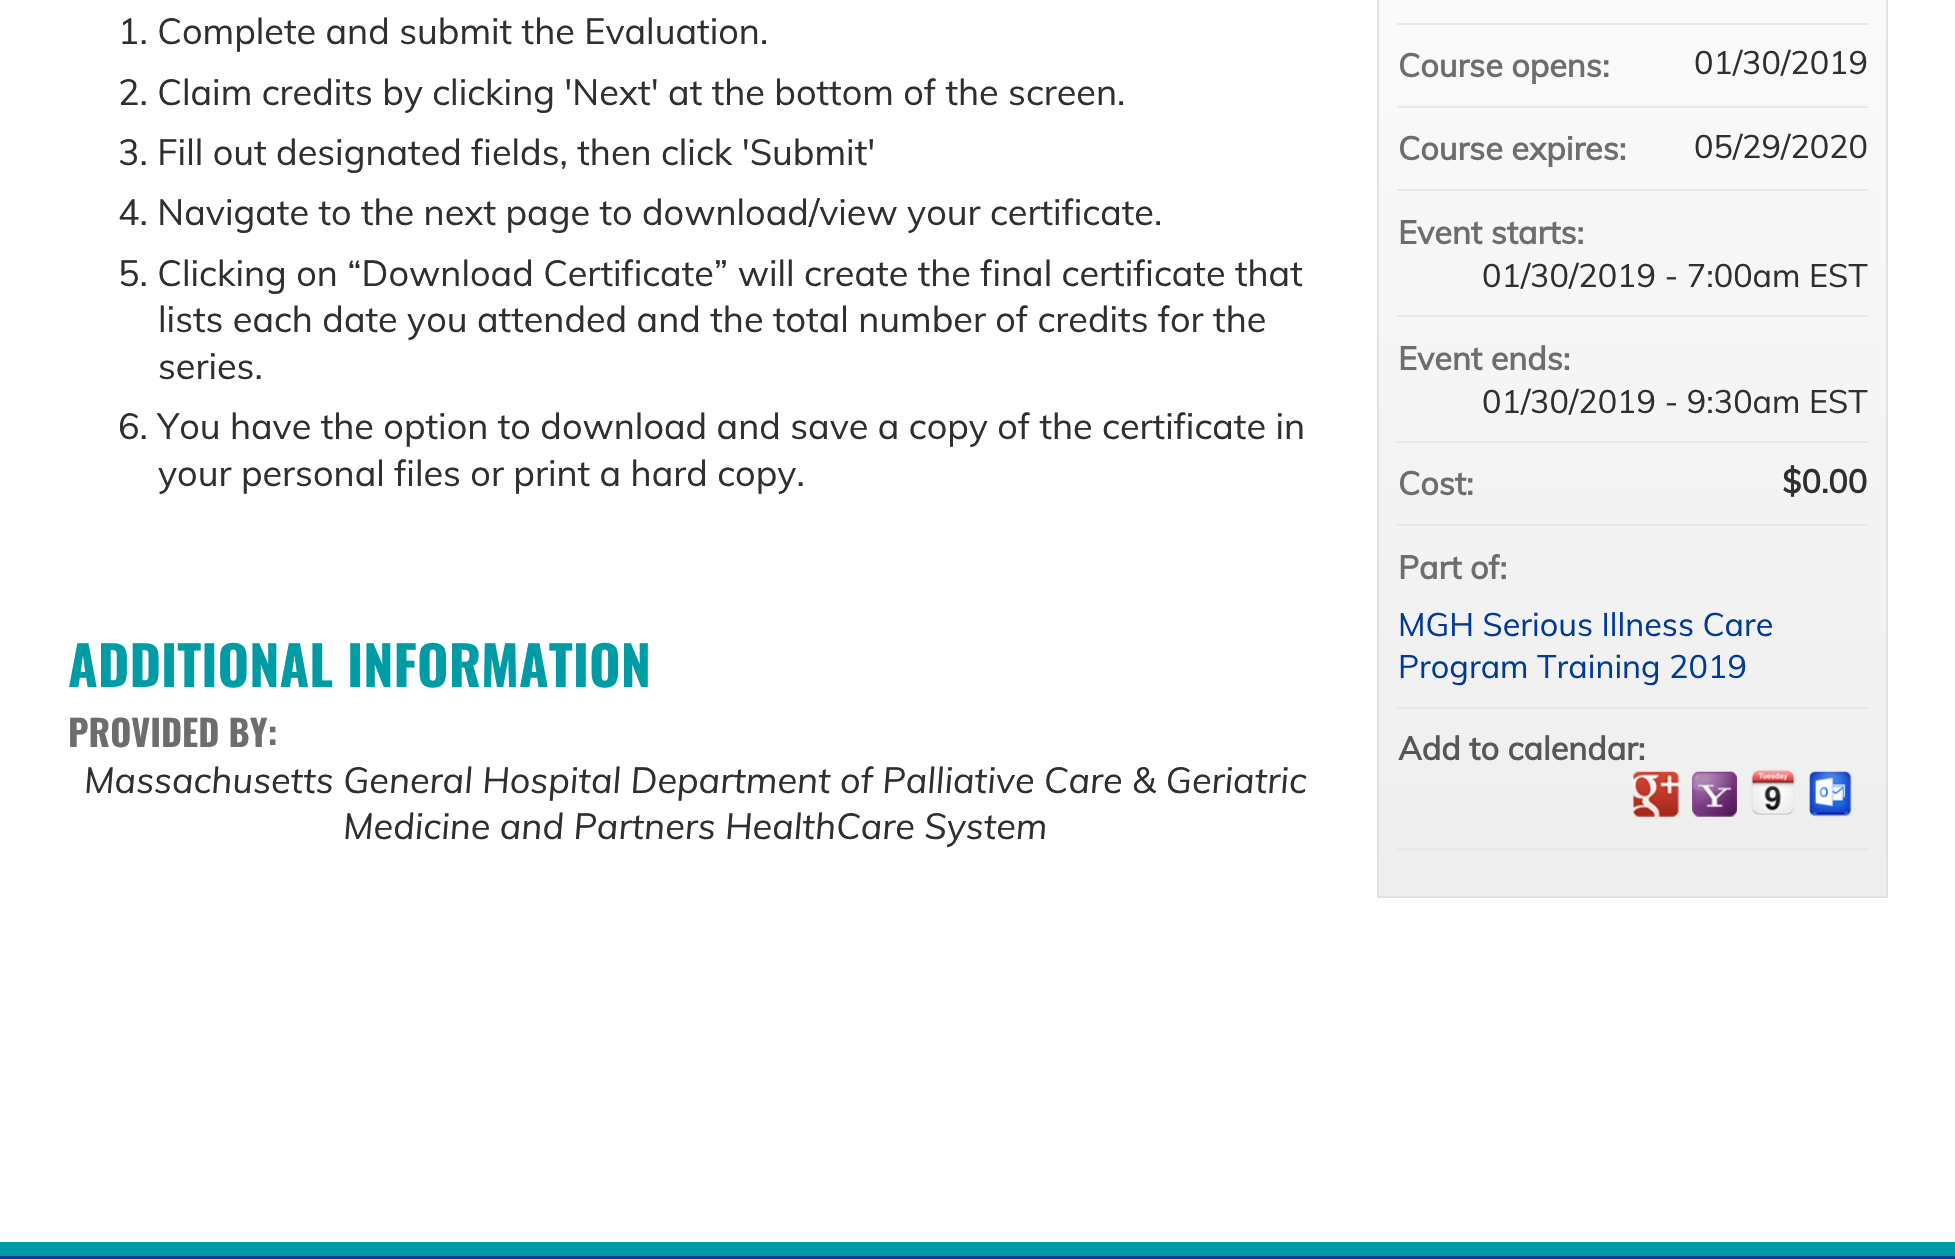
void draw(SkCanvas* canvas) {
  SkPaint paint;
  paint.setAntiAlias(true);
  auto face = [&](const char* family, int weight, float size, bool italic = false) {
    SkFontStyle style(weight, SkFontStyle::kNormal_Width,
      italic ? SkFontStyle::kItalic_Slant : SkFontStyle::kUpright_Slant);
    SkFont result(fontMgr->matchFamilyStyle(family, style), size);
    result.setSubpixel(true);
    return result;
  };
  auto paste = [&](const char* path, float x, float y, float w, float h) {
    auto image = SkImages::DeferredFromEncodedData(SkData::MakeFromFileName(path));
    canvas->drawImageRect(image, SkRect::MakeXYWH(x, y, w, h), SkSamplingOptions());
  };
  auto shape = [&](const char* data, bool evenOdd = false) {
    SkPath result = *SkParsePath::FromSVGString(data);
    if (evenOdd) result.setFillType(SkPathFillType::kEvenOdd);
    return result;
  };
  canvas->clear(0xffffffff);
  {
    const SkColor colors[] = {0xffeeeeee, 0xffffffff};
    const float stops[] = {0, 1};
    const SkPoint ends[] = {{1632, 896}, {1632, -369}};
    paint.setShader(SkGradientShader::MakeLinear(ends, colors, stops, 2, SkTileMode::kClamp));
    paint.setAlpha(255);
  }
  canvas->drawRect(SkRect::MakeXYWH(1379, 0, 507, 896), paint);
  paint.setShader(nullptr);
  paint.setColor(0xffe1e1e1);
  canvas->drawPath(shape("M1888-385V898L1886 896V-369Z"), paint);
  canvas->drawRect(SkRect::MakeXYWH(1377, 896, 511, 2), paint);
  canvas->drawPath(shape("M1377 898V-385L1379-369V896Z"), paint);
  {
    const struct { float x, y, w, h; SkColor color; } items[] = {
      {1397, 23, 471, 2, 0xffe8e8e8},
      {1397, 106, 471, 2, 0xffe8e8e8},
      {1397, 189, 471, 2, 0xffe8e8e8},
      {1397, 315, 471, 2, 0xffe8e8e8},
      {1397, 441, 471, 2, 0xffe8e8e8},
      {1397, 524, 471, 2, 0xffe8e8e8},
      {1397, 707, 471, 2, 0xffe8e8e8},
      {1397, 848, 471, 2, 0xffe8e8e8},
    };
    for (auto [x, y, w, h, color] : items) {
      paint.setColor(color);
      canvas->drawRect(SkRect::MakeXYWH(x, y, w, h), paint);
    }
  }
  paste("img/1.png", 1633, 771, 46, 46);
  paste("img/2.png", 1692, 771, 45, 46);
  paste("img/3.png", 1751, 769, 44, 46);
  paste("img/4.png", 1809, 771, 43, 46);
  paint.setColor(0xff003a96);
  canvas->drawRect(SkRect::MakeXYWH(0, 1256, 1955, 3), paint);
  paint.setColor(0xff009ca6);
  canvas->drawRect(SkRect::MakeXYWH(0, 1242, 1955, 14), paint);
  auto f0 = face("Muli", 400, 36);
  paint.setColor(0xff2f2f2f);
  {
    const struct { const char* s; float x, y; } items[] = {
      {"1. Complete and submit the Evaluation.", 118, 44},
      {"2. Claim credits by clicking 'Next' at the bottom of the screen.", 118, 105},
      {"3. Fill out designated fields, then click 'Submit'", 118, 165},
      {"4. Navigate to the next page to download/view your certificate.", 118, 225},
      {"5. Clicking on “Download Certificate” will create the final certificate that", 118, 286},
      {"lists each date you attended and the total number of credits for the", 158, 332},
      {"series.", 158, 379},
      {"6. You have the option to download and save a copy of the certificate in", 118, 439},
      {"your personal files or print a hard copy.", 158, 486},
    };
    for (auto [s, x, y] : items) {
      canvas->drawString(s, x, y, f0, paint);
    }
  }
  auto f1 = face("Oswald", 700, 54);
  paint.setColor(0xff009ca6);
  canvas->drawString("ADDITIONAL INFORMATION", 68, 687, f1, paint);
  auto f2 = face("Oswald", 700, 36);
  paint.setColor(0xff6d6d6d);
  canvas->drawString("PROVIDED BY:", 68, 747, f2, paint);
  auto f3 = face("Muli", 400, 36, true);
  paint.setColor(0xff2f2f2f);
  canvas->drawString("Massachusetts General Hospital Department of Palliative Care & Geriatric", 84, 793, f3, paint);
  canvas->drawString("Medicine and Partners HealthCare System", 343, 839, f3, paint);
  auto f4 = face("Muli", 700, 32.4f);
  paint.setColor(0xff6d6d6d);
  canvas->drawString("Course opens:", 1398, 77, f4, paint);
  auto f5 = face("Muli", 400, 32.4f);
  paint.setColor(0xff2f2f2f);
  canvas->drawString("01/30/2019", 1694, 74, f5, paint);
  paint.setColor(0xff6d6d6d);
  canvas->drawString("Course expires:", 1398, 160, f4, paint);
  paint.setColor(0xff2f2f2f);
  canvas->drawString("05/29/2020", 1694, 158, f5, paint);
  paint.setColor(0xff6d6d6d);
  canvas->drawString("Event starts:", 1398, 244, f4, paint);
  paint.setColor(0xff2f2f2f);
  canvas->drawString("01/30/2019 - 7:00am EST", 1482, 287, f5, paint);
  paint.setColor(0xff6d6d6d);
  canvas->drawString("Event ends:", 1398, 370, f4, paint);
  paint.setColor(0xff2f2f2f);
  canvas->drawString("01/30/2019 - 9:30am EST", 1482, 413, f5, paint);
  paint.setColor(0xff6d6d6d);
  canvas->drawString("Cost:", 1398, 495, f4, paint);
  paint.setColor(0xff2f2f2f);
  canvas->drawString("$0.00", 1782, 493, f4, paint);
  paint.setColor(0xff6d6d6d);
  canvas->drawString("Part of:", 1398, 579, f4, paint);
  paint.setColor(0xff003a96);
  canvas->drawString("MGH Serious Illness Care", 1398, 636, f5, paint);
  canvas->drawString("Program Training 2019", 1398, 678, f5, paint);
  paint.setColor(0xff575757);
  canvas->drawString("Add to calendar:", 1398, 760, f4, paint);
}
